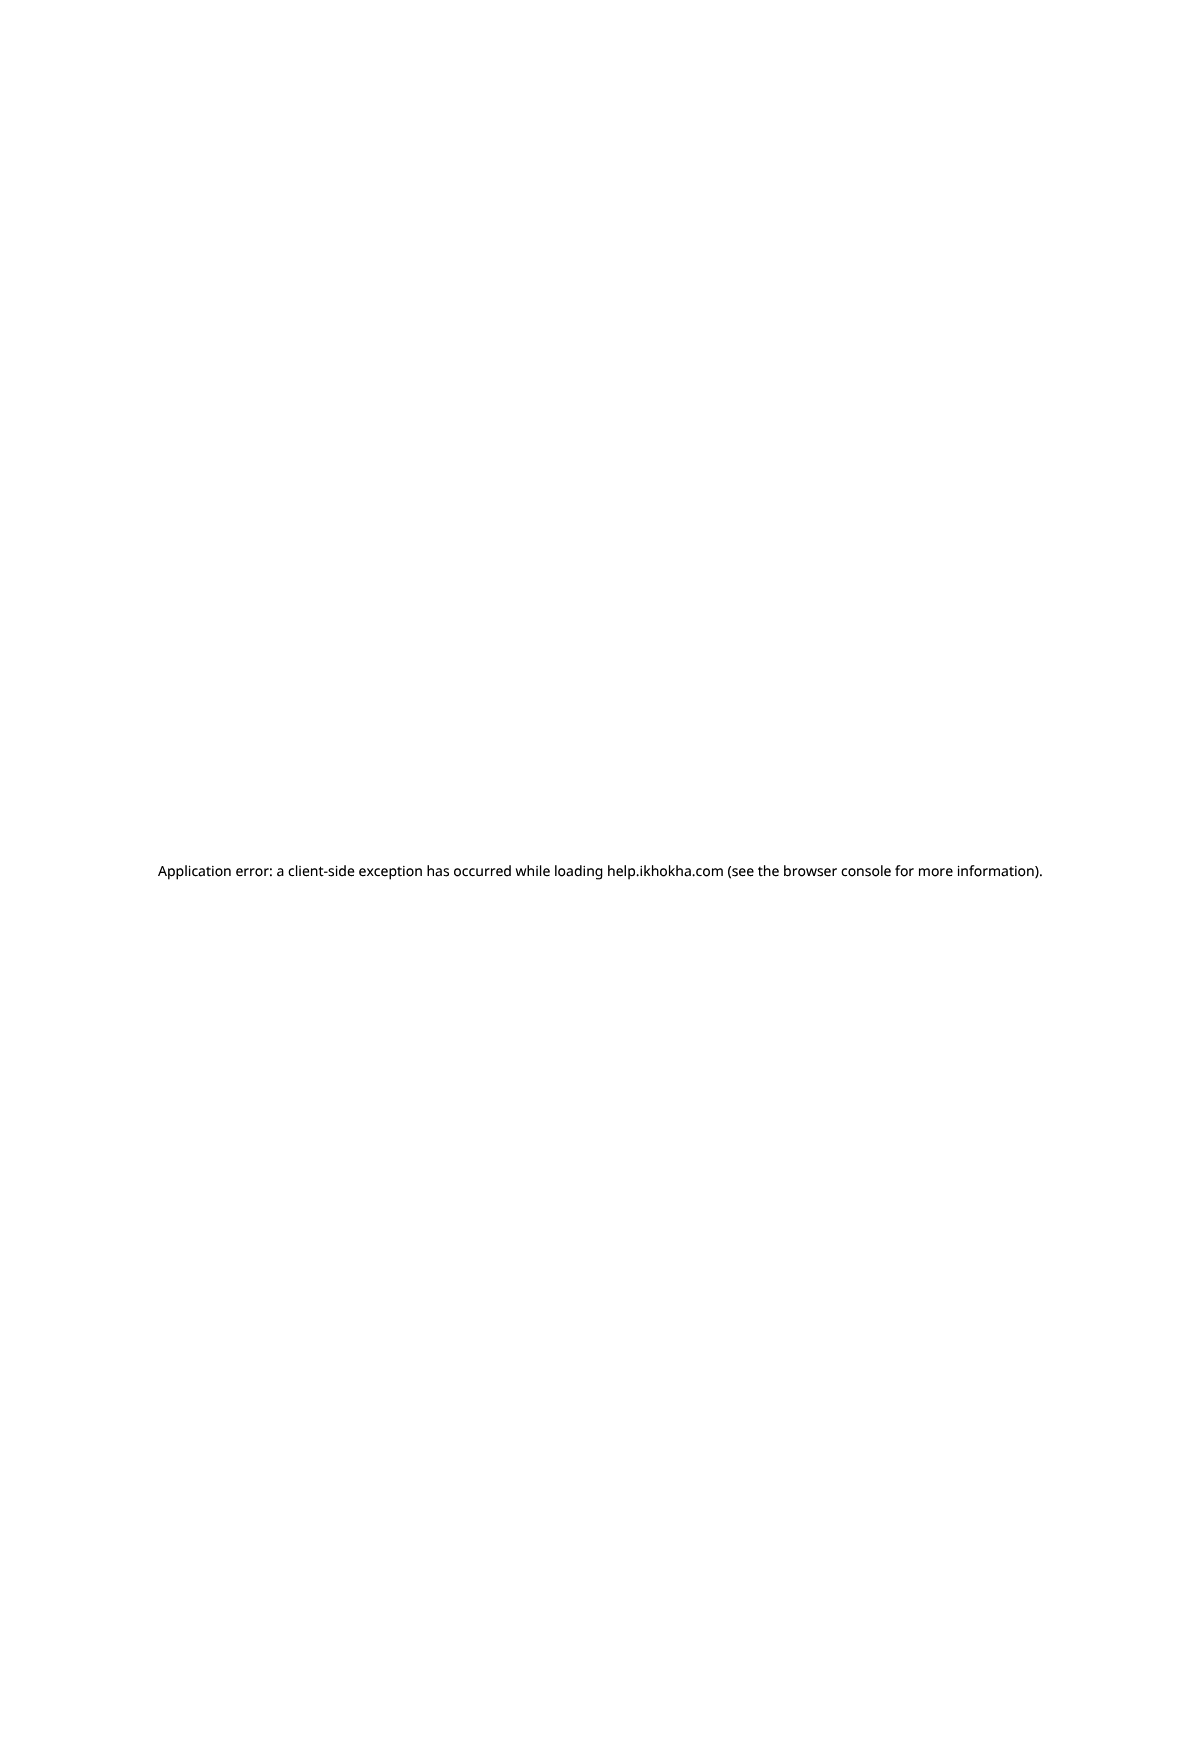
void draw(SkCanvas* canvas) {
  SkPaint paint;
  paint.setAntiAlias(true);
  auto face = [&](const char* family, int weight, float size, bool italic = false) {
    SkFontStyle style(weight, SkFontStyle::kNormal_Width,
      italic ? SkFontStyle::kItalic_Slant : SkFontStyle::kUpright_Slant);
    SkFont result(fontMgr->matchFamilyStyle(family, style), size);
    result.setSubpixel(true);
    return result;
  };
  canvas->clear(0xffffffff);
  auto f0 = face("Noto Sans", 400, 14);
  paint.setColor(0xff000000);
  canvas->drawString("Application error: a client-side exception has occurred while loading help.ikhokha.com (see the browser console for more information).", 158, 876, f0, paint);
}
